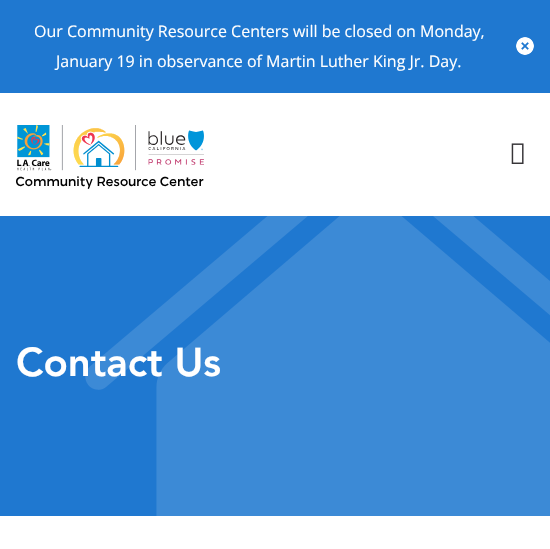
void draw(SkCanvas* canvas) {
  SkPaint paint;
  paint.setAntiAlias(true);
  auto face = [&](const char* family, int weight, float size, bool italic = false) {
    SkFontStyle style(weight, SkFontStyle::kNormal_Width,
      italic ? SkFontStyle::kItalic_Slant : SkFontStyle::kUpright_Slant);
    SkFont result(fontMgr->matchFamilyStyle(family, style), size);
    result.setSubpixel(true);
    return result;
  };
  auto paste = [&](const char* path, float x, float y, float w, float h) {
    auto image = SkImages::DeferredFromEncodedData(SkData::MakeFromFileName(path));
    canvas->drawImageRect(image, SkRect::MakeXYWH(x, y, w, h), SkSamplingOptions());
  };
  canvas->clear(0xffffffff);
  paint.setColor(0xff1f78d0);
  canvas->drawRect(SkRect::MakeXYWH(0, 0, 550, 93), paint);
  paste("img/1.png", 516, 37, 18, 18);
  paste("img/2.png", 16, 125, 188, 64);
  paste("img/3.png", 511, 143, 13, 21);
  canvas->drawRect(SkRect::MakeXYWH(0, 216, 550, 300), paint);
  auto f0 = face("Open Sans", 400, 16);
  paint.setColor(0xffffffff);
  canvas->drawString("Our Community Resource Centers will be closed on Monday,", 34, 37, f0, paint);
  canvas->drawString("January 19 in observance of Martin Luther King Jr. Day.", 56, 67, f0, paint);
  auto f1 = face("Avenir", 900, 40);
  canvas->drawString("Contact Us", 16, 376, f1, paint);
  paste("img/4.png", 85, 216, 465, 300);
}
